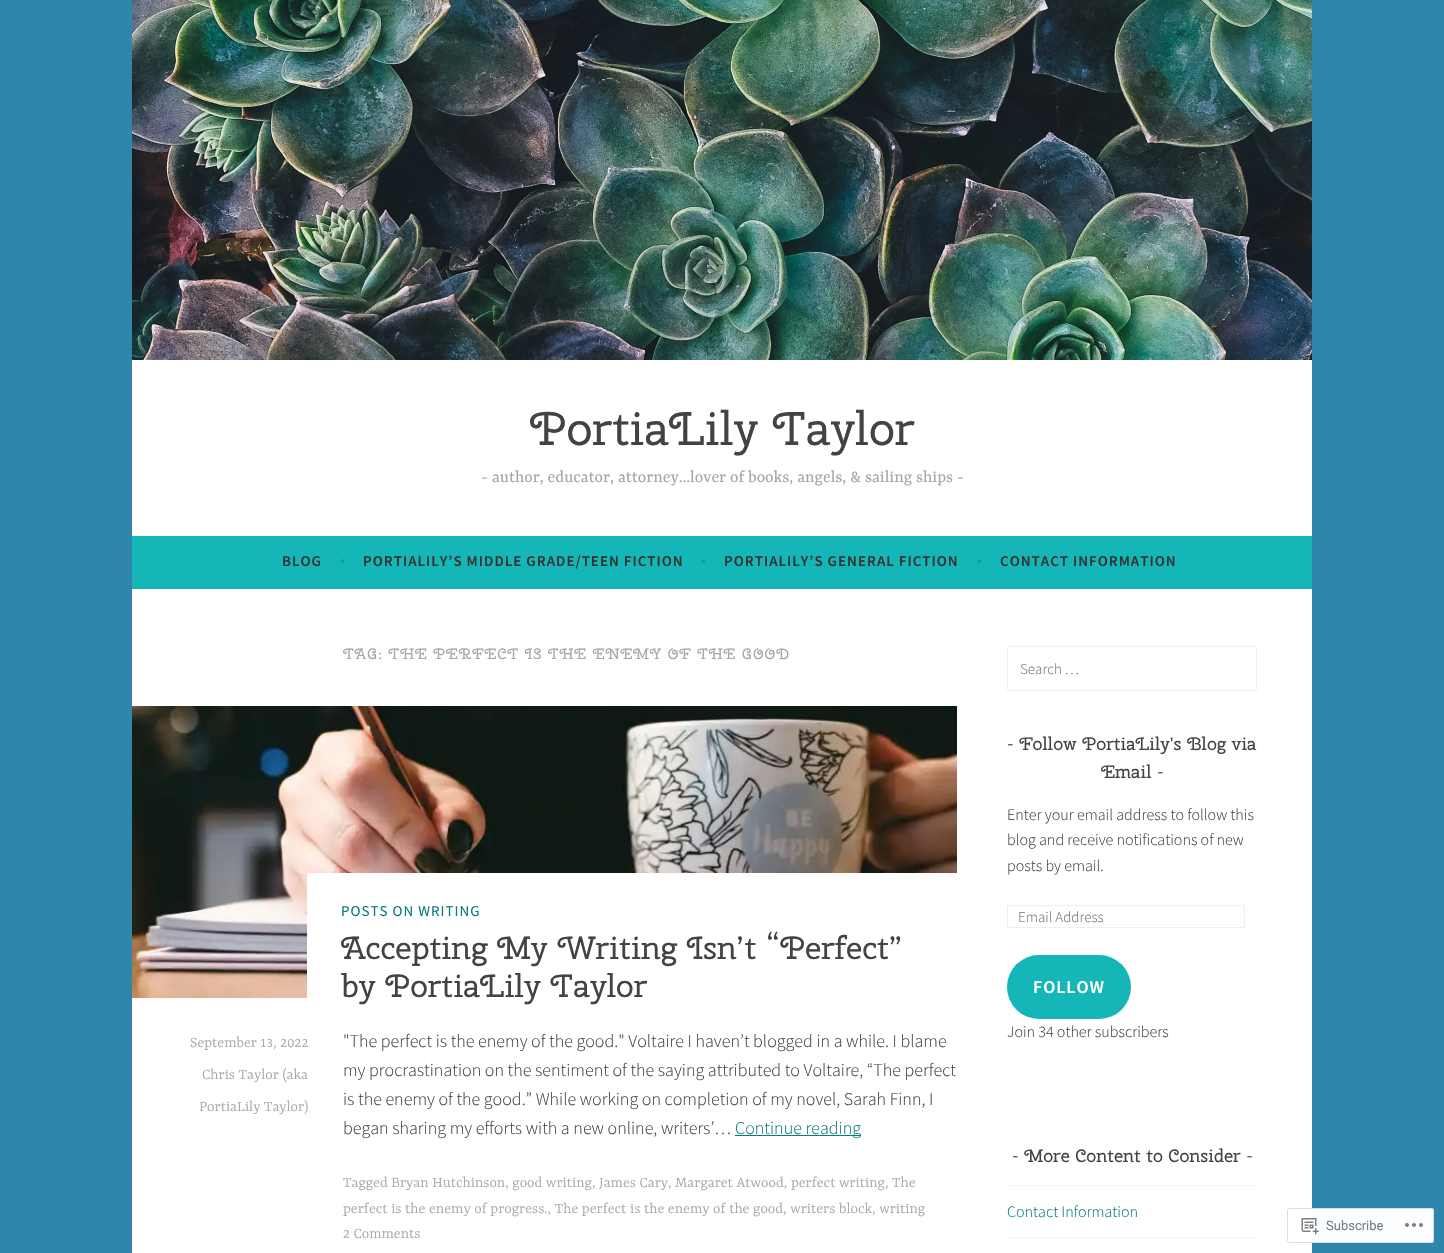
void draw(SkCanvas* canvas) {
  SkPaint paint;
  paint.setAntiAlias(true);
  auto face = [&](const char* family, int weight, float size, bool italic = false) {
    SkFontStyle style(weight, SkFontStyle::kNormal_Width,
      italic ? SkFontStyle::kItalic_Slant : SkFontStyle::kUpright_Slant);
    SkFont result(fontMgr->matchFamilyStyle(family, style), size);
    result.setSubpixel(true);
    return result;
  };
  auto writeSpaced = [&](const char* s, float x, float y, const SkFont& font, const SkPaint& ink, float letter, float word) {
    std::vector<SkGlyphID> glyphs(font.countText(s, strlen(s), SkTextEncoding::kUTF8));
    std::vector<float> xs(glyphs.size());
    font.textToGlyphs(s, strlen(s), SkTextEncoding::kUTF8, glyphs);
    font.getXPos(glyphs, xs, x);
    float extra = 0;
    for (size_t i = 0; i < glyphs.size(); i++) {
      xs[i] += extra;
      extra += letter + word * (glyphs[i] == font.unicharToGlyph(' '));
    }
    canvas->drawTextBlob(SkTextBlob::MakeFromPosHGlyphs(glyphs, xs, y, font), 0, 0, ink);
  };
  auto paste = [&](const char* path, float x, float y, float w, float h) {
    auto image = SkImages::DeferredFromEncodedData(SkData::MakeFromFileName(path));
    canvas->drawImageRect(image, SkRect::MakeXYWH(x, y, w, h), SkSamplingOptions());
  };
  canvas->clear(0xff2f86ac);
  paste("img/1.png", 132, 0, 1180, 360);
  {
    const struct { float x, y, w, h; SkColor color; } items[] = {
      {132, 360, 1180, 176, 0xffffffff},
      {132, 536, 1180, 51, 0xff15b6b8},
      {132, 587, 1180, 2, 0xff14b1b2},
      {132, 589, 1180, 664, 0xffffffff},
    };
    for (auto [x, y, w, h, color] : items) {
      paint.setColor(color);
      canvas->drawRect(SkRect::MakeXYWH(x, y, w, h), paint);
    }
  }
  paste("img/2.png", 132, 706, 825, 292);
  canvas->drawRect(SkRect::MakeXYWH(307, 873, 650, 125), paint);
  paint.setColor(0xff077a7c);
  canvas->drawRect(SkRect::MakeXYWH(735, 1135, 126, 1), paint);
  paint.setStroke(true);
  paint.setStrokeWidth(1);
  paint.setColor(0xffeeeeee);
  canvas->drawRoundRect(SkRect::MakeXYWH(1007.5f, 646.5f, 249, 44), 1.5f, 1.5f, paint);
  canvas->drawRoundRect(SkRect::MakeXYWH(1007.5f, 905.5f, 237, 22), 1.5f, 1.5f, paint);
  paint.setStroke(false);
  paint.setColor(0xff15b6b8);
  canvas->drawRoundRect(SkRect::MakeXYWH(1007, 955, 124, 64), 32, 32, paint);
  paint.setColor(0xfff2f2f2);
  canvas->drawRect(SkRect::MakeXYWH(1007, 1185, 250, 1), paint);
  canvas->drawRect(SkRect::MakeXYWH(1007, 1237, 250, 1), paint);
  paint.setColor(0xfaffffff);
  canvas->drawRoundRect(SkRect::MakeXYWH(1287, 1208, 147, 35), 3, 3, paint);
  paint.setStroke(true);
  paint.setColor(0xfadcdcde);
  canvas->drawRoundRect(SkRect::MakeXYWH(1287.5f, 1208.5f, 146, 34), 2.5f, 2.5f, paint);
  paste("img/3.png", 1301, 1218, 18, 17);
  paste("img/4.png", 1405, 1223, 18, 4);
  auto f0 = face("Cherry Swash", 400, 47);
  paint.setStroke(false);
  paint.setColor(0xff444340);
  canvas->drawString("PortiaLily Taylor", 530, 445, f0, paint);
  auto f1 = face("Yrsa", 400, 18);
  paint.setColor(0xffa8a6a1);
  canvas->drawString("- author, educator, attorney…lover of books, angels, & sailing ships -", 481, 482, f1, paint);
  auto f2 = face("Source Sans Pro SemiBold", 600, 15);
  paint.setColor(0xff333333);
  writeSpaced("BLOG", 282, 566, f2, paint, 1, 0);
  auto f3 = face("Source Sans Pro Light", 300, 18);
  paint.setColor(0xff129b9c);
  canvas->drawString("•", 340, 566, f3, paint);
  paint.setColor(0xff333333);
  writeSpaced("PORTIALILY’S MIDDLE GRADE/TEEN FICTION", 363, 566, f2, paint, 1, 0);
  paint.setColor(0xff129b9c);
  canvas->drawString("•", 701, 566, f3, paint);
  paint.setColor(0xff333333);
  writeSpaced("PORTIALILY’S GENERAL FICTION", 724, 566, f2, paint, 1, 0);
  paint.setColor(0xff129b9c);
  canvas->drawString("•", 977, 566, f3, paint);
  paint.setColor(0xff333333);
  writeSpaced("CONTACT INFORMATION", 1000, 566, f2, paint, 1, 0);
  auto f4 = face("Cherry Swash", 400, 15);
  paint.setColor(0xffa8a6a1);
  writeSpaced("TAG: THE PERFECT IS THE ENEMY OF THE GOOD", 343, 659, f4, paint, 1, 0);
  auto f5 = face("Source Sans Pro", 400, 15);
  paint.setColor(0xff077a7c);
  writeSpaced("POSTS ON WRITING", 341, 916, f5, paint, 1, 0);
  auto f6 = face("Cherry Swash", 400, 32);
  paint.setColor(0xff444340);
  canvas->drawString("Accepting My Writing Isn’t “Perfect”", 341, 959, f6, paint);
  canvas->drawString("by PortiaLily Taylor", 341, 997, f6, paint);
  auto f7 = face("Yrsa", 300, 16);
  paint.setColor(0xffa8a6a1);
  {
    const struct { const char* s; float x, y; } items[] = {
      {"September 13, 2022", 190, 1047},
      {"Chris Taylor (aka", 202, 1079},
      {"PortiaLily Taylor)", 199, 1111},
    };
    for (auto [s, x, y] : items) {
      canvas->drawString(s, x, y, f7, paint);
    }
  }
  paint.setColor(0xff444340);
  {
    const struct { const char* s; float x, y; } items[] = {
      {"\"The perfect is the enemy of the good.\" Voltaire I haven’t blogged in a while. I blame", 343, 1047},
      {"my procrastination on the sentiment of the saying attributed to Voltaire, “The perfect", 343, 1076},
      {"is the enemy of the good.” While working on completion of my novel, Sarah Finn, I", 343, 1105},
      {"began sharing my efforts with a new online, writers’…", 343, 1134},
    };
    for (auto [s, x, y] : items) {
      canvas->drawString(s, x, y, f3, paint);
    }
  }
  paint.setColor(0xff077a7c);
  canvas->drawString("Continue reading", 735, 1134, f3, paint);
  paint.setColor(0xffa8a6a1);
  {
    const struct { const char* s; float x, y; } items[] = {
      {"Tagged Bryan Hutchinson, good writing, James Cary, Margaret Atwood, perfect writing, The", 343, 1187},
      {"perfect is the enemy of progress., The perfect is the enemy of the good, writers block, writing", 343, 1213},
      {"2 Comments", 343, 1238},
    };
    for (auto [s, x, y] : items) {
      canvas->drawString(s, x, y, f7, paint);
    }
  }
  auto f8 = face("Source Sans Pro Light", 300, 15);
  paint.setColor(0xff757575);
  canvas->drawString("Search …", 1020, 674, f8, paint);
  auto f9 = face("Cherry Swash", 400, 18);
  paint.setColor(0xff444340);
  canvas->drawString("- Follow PortiaLily's Blog via", 1007, 750, f9, paint);
  canvas->drawString("Email -", 1101, 778, f9, paint);
  auto f10 = face("Source Sans Pro Light", 300, 16);
  {
    const struct { const char* s; float x, y; } items[] = {
      {"Enter your email address to follow this", 1007, 820},
      {"blog and receive notifications of new", 1007, 845},
      {"posts by email.", 1007, 871},
    };
    for (auto [s, x, y] : items) {
      canvas->drawString(s, x, y, f10, paint);
    }
  }
  paint.setColor(0xff757575);
  canvas->drawString("Email Address", 1018, 922, f8, paint);
  auto f11 = face("Source Sans Pro SemiBold", 600, 18);
  paint.setColor(0xffffffff);
  writeSpaced("FOLLOW", 1033, 993, f11, paint, 1, 0);
  paint.setColor(0xff444340);
  canvas->drawString("Join 34 other subscribers", 1007, 1037, f10, paint);
  canvas->drawString("- More Content to Consider -", 1012, 1162, f9, paint);
  paint.setColor(0xff077a7c);
  canvas->drawString("Contact Information", 1007, 1217, f10, paint);
  auto f12 = face("Roboto", 400, 13);
  paint.setColor(0xff777c83);
  canvas->drawString("Subscribe", 1326, 1230, f12, paint);
}
